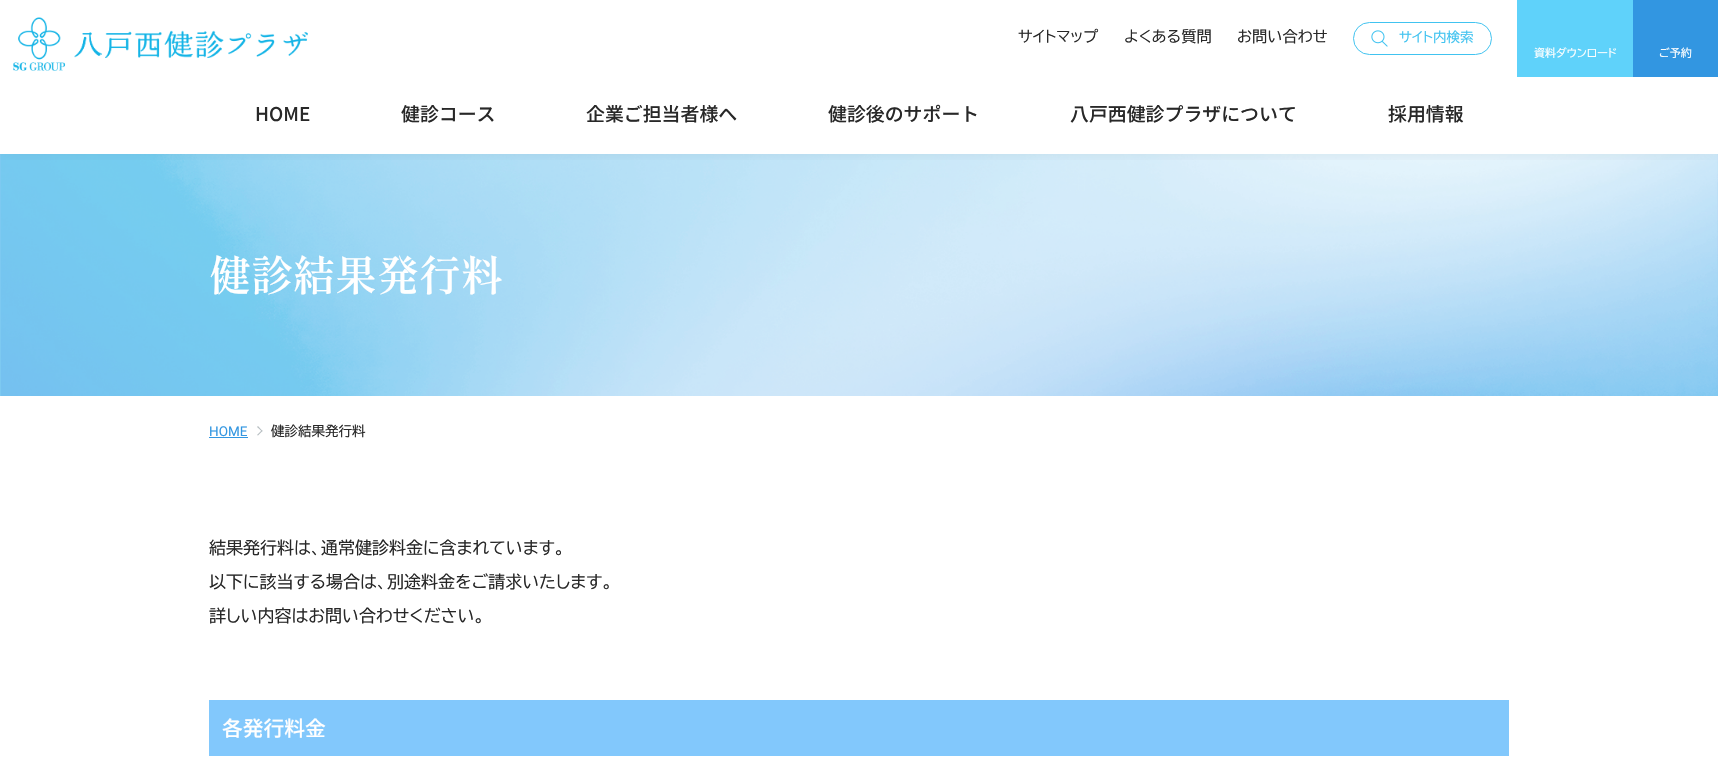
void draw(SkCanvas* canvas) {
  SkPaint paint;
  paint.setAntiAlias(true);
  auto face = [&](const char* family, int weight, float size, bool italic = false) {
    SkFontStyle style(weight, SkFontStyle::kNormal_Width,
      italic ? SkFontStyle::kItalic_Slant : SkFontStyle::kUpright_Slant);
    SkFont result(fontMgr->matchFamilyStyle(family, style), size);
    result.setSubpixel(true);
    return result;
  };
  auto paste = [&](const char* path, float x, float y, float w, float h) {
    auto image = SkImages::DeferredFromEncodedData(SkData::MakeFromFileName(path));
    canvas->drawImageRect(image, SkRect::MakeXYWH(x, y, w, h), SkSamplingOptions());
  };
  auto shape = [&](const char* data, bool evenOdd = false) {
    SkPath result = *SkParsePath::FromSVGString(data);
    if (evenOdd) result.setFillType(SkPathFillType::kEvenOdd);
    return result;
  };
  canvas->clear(0xffffffff);
  paste("img/3.png", 0, 154, 1718, 242);
  canvas->save();
  canvas->clipRect(SkRect::MakeXYWH(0, 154, 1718, 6));
  paint.setColor(0x332e404e);
  paint.setMaskFilter(SkMaskFilter::MakeBlur(kNormal_SkBlurStyle, 12.5f));
  canvas->drawRect(SkRect::MakeXYWH(0, -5, 1718, 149), paint);
  paint.setMaskFilter(nullptr);
  canvas->restore();
  paste("img/1.png", 13, 17, 295, 54);
  paint.setStroke(true);
  paint.setStrokeWidth(1);
  paint.setColor(0xff41c3f0);
  canvas->drawRoundRect(SkRect::MakeXYWH(1353.5f, 22.5f, 138, 32), 16, 16, paint);
  paste("img/2.png", 1371, 30, 17, 17);
  paint.setStroke(false);
  {
    const struct { float x, y, w, h; SkColor color; } items[] = {
      {1517, 0, 116, 77, 0xff5fd2fa},
      {1633, 0, 85, 77, 0xff3296e1},
      {0, 149, 1718, 5, 0xffffffff},
      {209, 437, 39, 1, 0xff3296e1},
    };
    for (auto [x, y, w, h, color] : items) {
      paint.setColor(color);
      canvas->drawRect(SkRect::MakeXYWH(x, y, w, h), paint);
    }
  }
  paint.setColor(0xffb6bdc1);
  canvas->drawPath(shape("M258 426L262.5 431L262 431.5L257 427Z"), paint);
  canvas->drawPath(shape("M262 430L262.5 431L258 435.5L257 435Z"), paint);
  paint.setColor(0xff82c8fc);
  canvas->drawRect(SkRect::MakeXYWH(209, 700, 1300, 56), paint);
  auto f0 = face("BIZ UDPGothic", 400, 15.25f);
  paint.setColor(0xff282828);
  {
    const struct { const char* s; float x, y; } items[] = {
      {"サイトマップ", 1018, 42},
      {"よくある質問", 1124, 42},
      {"お問い合わせ", 1237, 42},
    };
    for (auto [s, x, y] : items) {
      canvas->drawString(s, x, y, f0, paint);
    }
  }
  auto f1 = face("BIZ UDPGothic", 400, 13.5f);
  paint.setColor(0xff41c3f0);
  canvas->drawString("サイト内検索", 1399, 42, f1, paint);
  auto f2 = face("BIZ UDPGothic", 400, 11);
  paint.setColor(0xffffffff);
  canvas->drawString("資料ダウンロード", 1534, 57, f2, paint);
  canvas->drawString("ご予約", 1659, 57, f2, paint);
  auto f3 = face("Noto Sans JP", 500, 18.9f);
  paint.setColor(0xff282828);
  {
    const struct { const char* s; float x, y; } items[] = {
      {"HOME", 255, 121},
      {"健診コース", 401, 121},
      {"企業ご担当者様へ", 586, 121},
      {"健診後のサポート", 828, 121},
      {"八戸西健診プラザについて", 1070, 121},
      {"採用情報", 1388, 121},
    };
    for (auto [s, x, y] : items) {
      canvas->drawString(s, x, y, f3, paint);
    }
  }
  auto f4 = face("Shippori Mincho", 600, 42);
  paint.setColor(0xffffffff);
  canvas->drawString("健診結果発行料", 209, 291, f4, paint);
  auto f5 = face("Roboto", 400, 13.5f);
  paint.setColor(0xff3296e1);
  canvas->drawString("HOME", 209, 436, f5, paint);
  paint.setColor(0xff282828);
  canvas->drawString("健診結果発行料", 271, 436, f1, paint);
  auto f6 = face("BIZ UDPGothic", 400, 17);
  {
    const struct { const char* s; float x, y; } items[] = {
      {"結果発行料は、通常健診料金に含まれています。", 209, 554},
      {"以下に該当する場合は、別途料金をご請求いたします。", 209, 588},
      {"詳しい内容はお問い合わせください。", 209, 622},
    };
    for (auto [s, x, y] : items) {
      canvas->drawString(s, x, y, f6, paint);
    }
  }
  auto f7 = face("Noto Sans JP", 500, 20.75f);
  paint.setColor(0xffffffff);
  canvas->drawString("各発行料金", 222, 736, f7, paint);
}
